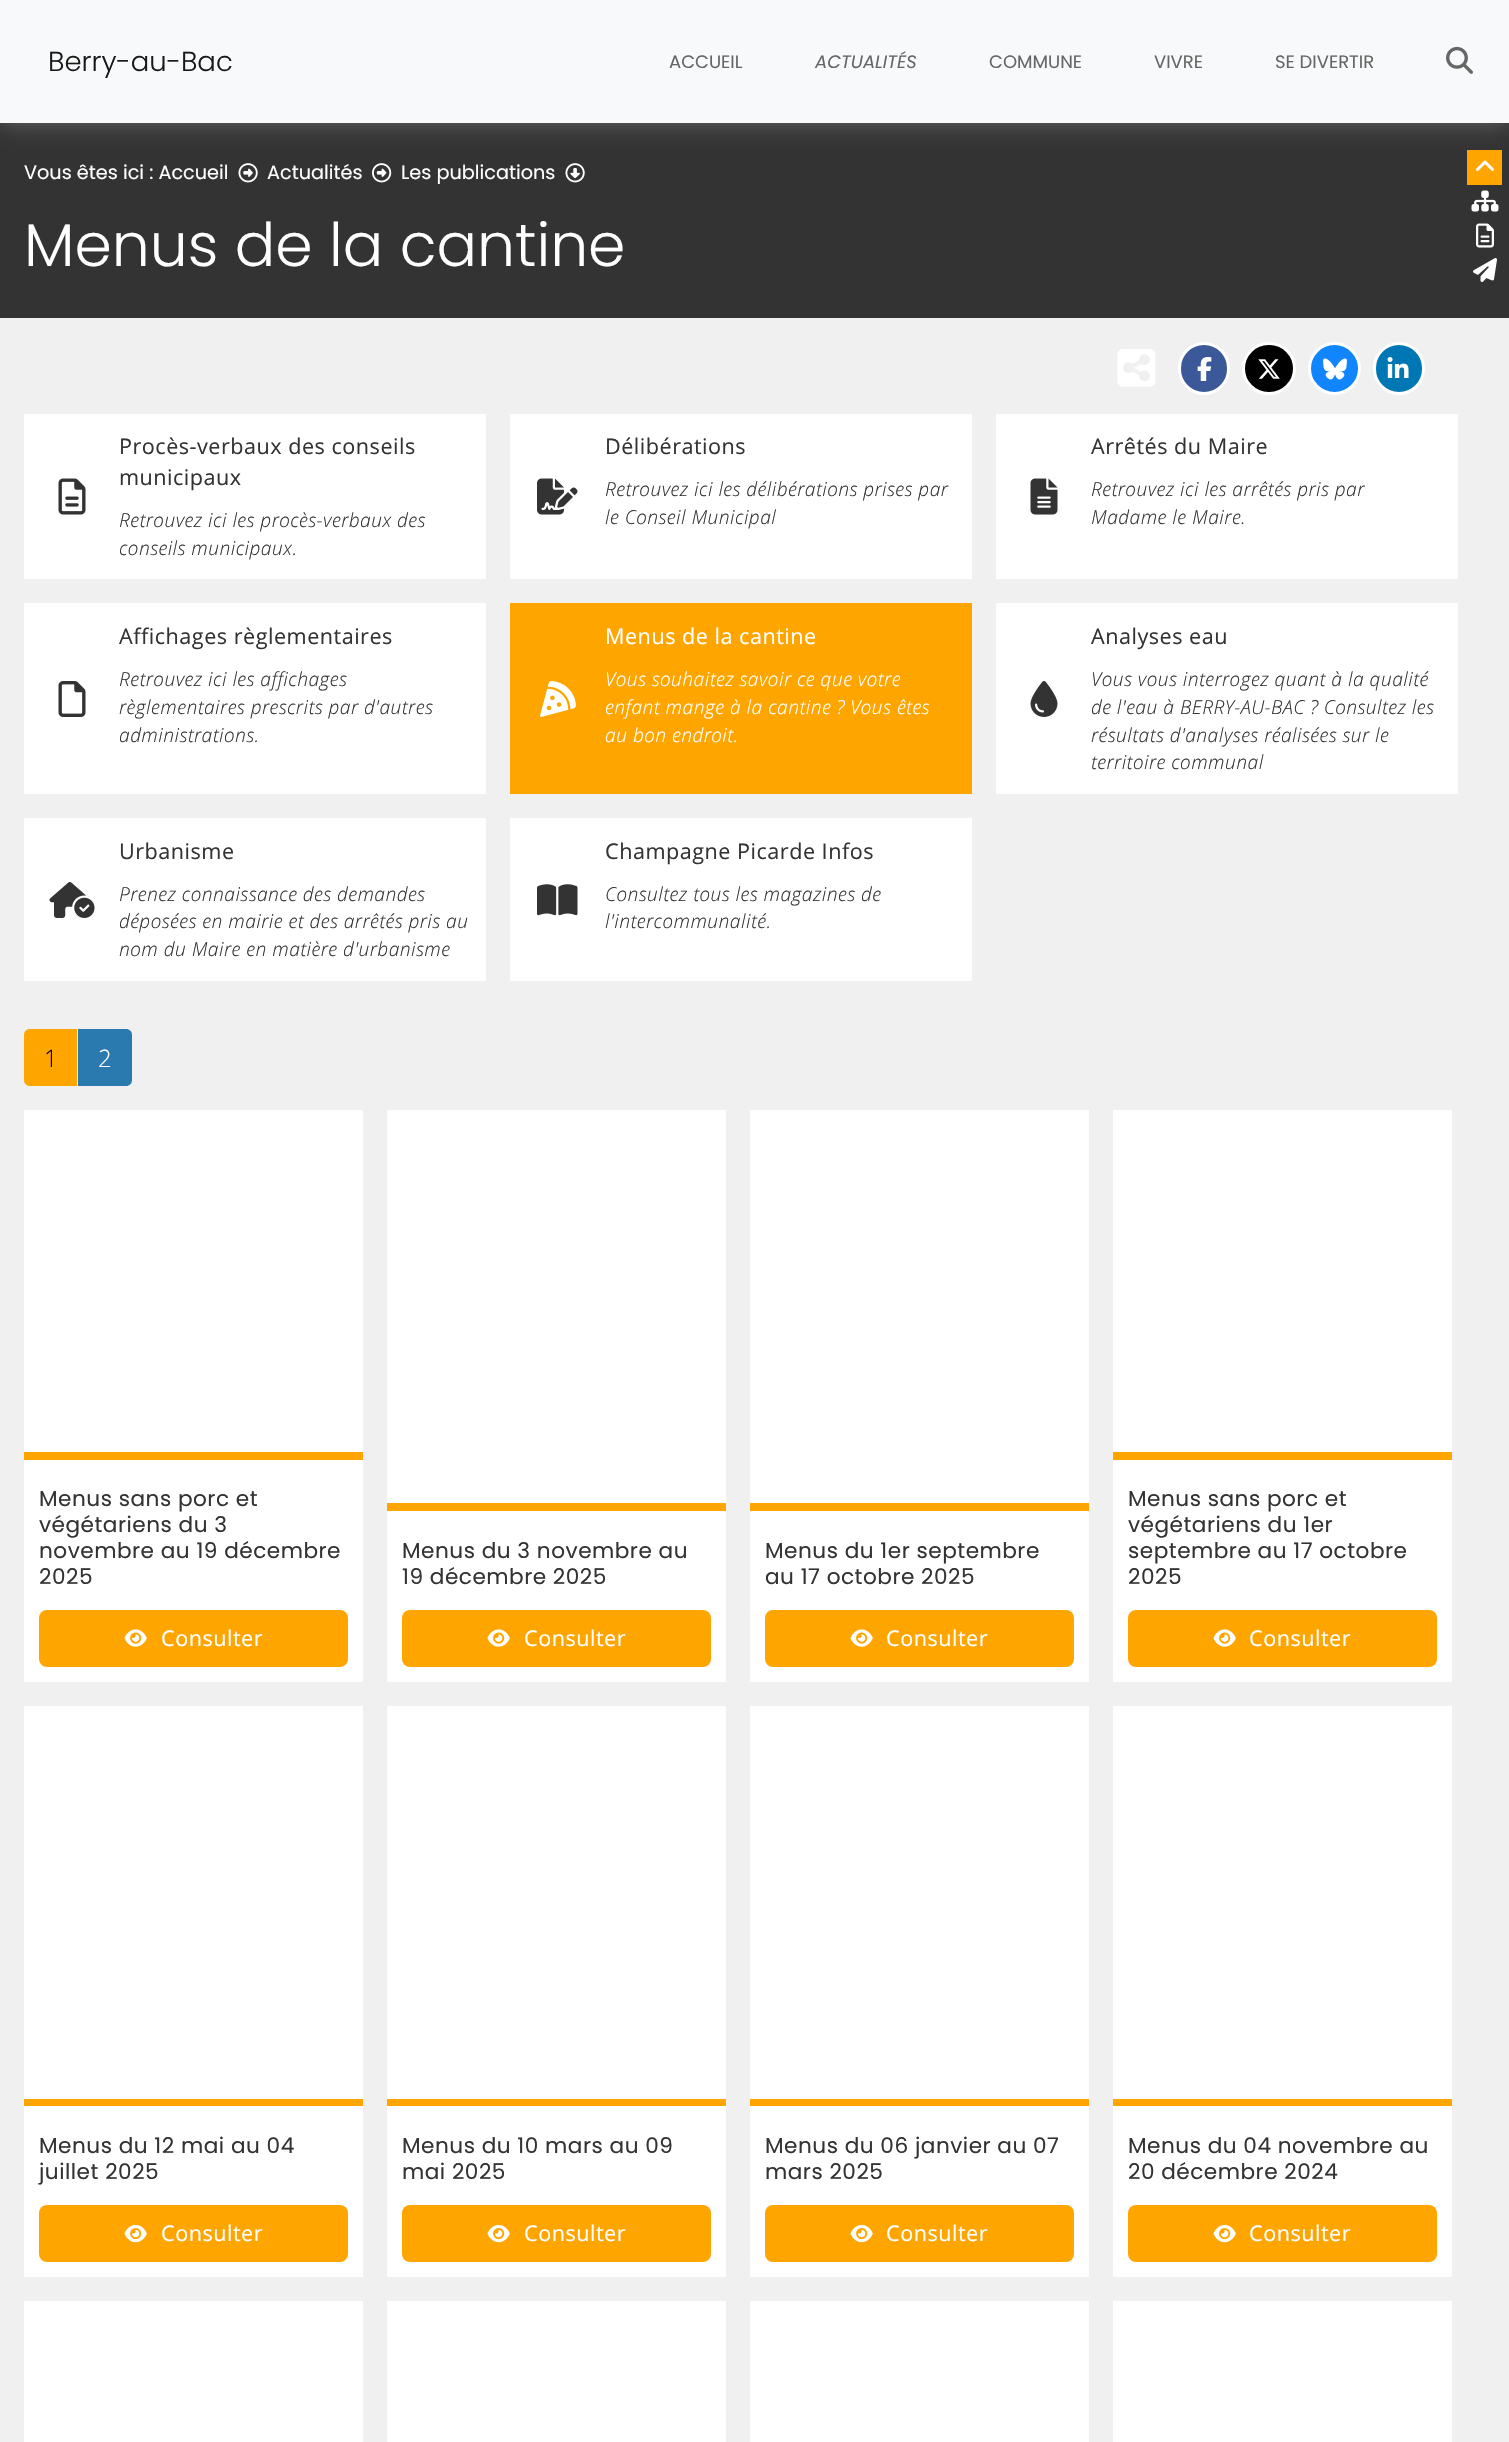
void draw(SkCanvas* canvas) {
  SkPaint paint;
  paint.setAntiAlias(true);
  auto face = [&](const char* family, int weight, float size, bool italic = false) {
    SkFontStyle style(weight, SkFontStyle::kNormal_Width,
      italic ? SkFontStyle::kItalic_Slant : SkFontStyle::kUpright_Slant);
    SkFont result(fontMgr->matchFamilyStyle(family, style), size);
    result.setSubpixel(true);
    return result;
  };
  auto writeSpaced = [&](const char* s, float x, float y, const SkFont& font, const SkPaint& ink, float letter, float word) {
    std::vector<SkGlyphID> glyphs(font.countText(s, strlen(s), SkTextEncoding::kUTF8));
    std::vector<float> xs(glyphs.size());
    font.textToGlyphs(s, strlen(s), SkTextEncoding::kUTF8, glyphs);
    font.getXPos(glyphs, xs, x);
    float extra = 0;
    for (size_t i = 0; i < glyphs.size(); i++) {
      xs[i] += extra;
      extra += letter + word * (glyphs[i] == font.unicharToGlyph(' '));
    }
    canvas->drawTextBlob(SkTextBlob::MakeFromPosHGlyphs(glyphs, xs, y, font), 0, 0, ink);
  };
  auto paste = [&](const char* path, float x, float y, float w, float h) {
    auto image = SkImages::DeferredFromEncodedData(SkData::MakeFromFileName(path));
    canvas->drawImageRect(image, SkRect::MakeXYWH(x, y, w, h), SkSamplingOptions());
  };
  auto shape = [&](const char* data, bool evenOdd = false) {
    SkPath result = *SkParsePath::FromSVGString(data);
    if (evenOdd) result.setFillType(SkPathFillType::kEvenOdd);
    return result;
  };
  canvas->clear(0xfff0f0f0);
  paint.setColor(0xff333333);
  canvas->drawRect(SkRect::MakeXYWH(0, 123, 1509, 195), paint);
  paint.setColor(0xffffa500);
  canvas->drawRect(SkRect::MakeXYWH(1467, 150, 35, 35), paint);
  paint.setColor(0xff666666);
  paint.setMaskFilter(SkMaskFilter::MakeBlur(kNormal_SkBlurStyle, 11));
  canvas->drawRect(SkRect::MakeXYWH(0, 0, 1509, 123), paint);
  paint.setMaskFilter(nullptr);
  paint.setColor(0xfff8f9fa);
  canvas->drawRect(SkRect::MakeXYWH(0, 0, 1509, 123), paint);
  paste("img/1.png", 1446, 46, 27, 28);
  paste("img/2.png", 238, 163, 20, 20);
  paste("img/3.png", 372, 163, 20, 20);
  paste("img/4.png", 565, 163, 20, 20);
  paste("img/5.png", 1117, 349, 39, 38);
  paint.setColor(0xff3b5998);
  canvas->drawRoundRect(SkRect::MakeXYWH(1179.5f, 343.5f, 49, 50), 24.5f, 24.5f, paint);
  paint.setStroke(true);
  paint.setStrokeWidth(3);
  paint.setColor(0xffffffff);
  canvas->drawRoundRect(SkRect::MakeXYWH(1179.5f, 343.5f, 49, 50), 24.5f, 24.5f, paint);
  paste("img/6.png", 1197, 357, 15, 24);
  paint.setStroke(false);
  paint.setColor(0xff000000);
  canvas->drawRoundRect(SkRect::MakeXYWH(1243.5f, 343.5f, 51, 50), 25, 25, paint);
  paint.setStroke(true);
  paint.setColor(0xffffffff);
  canvas->drawRoundRect(SkRect::MakeXYWH(1243.5f, 343.5f, 51, 50), 25, 25, paint);
  paste("img/7.png", 1258, 359, 22, 20);
  paint.setStroke(false);
  paint.setColor(0xff1185fe);
  canvas->drawCircle(1334.5f, 368.5f, 25, paint);
  paint.setStroke(true);
  paint.setColor(0xffffffff);
  canvas->drawCircle(1334.5f, 368.5f, 25, paint);
  paste("img/8.png", 1323, 358, 24, 22);
  paint.setStroke(false);
  paint.setColor(0xff0077b5);
  canvas->drawRoundRect(SkRect::MakeXYWH(1374.5f, 343.5f, 49, 50), 24.5f, 24.5f, paint);
  paint.setStroke(true);
  paint.setColor(0xffffffff);
  canvas->drawRoundRect(SkRect::MakeXYWH(1374.5f, 343.5f, 49, 50), 24.5f, 24.5f, paint);
  paste("img/9.png", 1387, 357, 22, 21);
  paste("img/10.png", 1476, 160, 18, 11);
  paste("img/11.png", 1471, 190, 28, 22);
  paste("img/12.png", 1476, 223, 18, 25);
  paste("img/13.png", 1473, 258, 24, 24);
  paint.setStroke(false);
  canvas->drawRect(SkRect::MakeXYWH(24, 414, 462, 165), paint);
  paste("img/14.png", 58, 478, 28, 37);
  canvas->drawRect(SkRect::MakeXYWH(510, 414, 462, 165), paint);
  paste("img/15.png", 537, 478, 41, 37);
  canvas->drawRect(SkRect::MakeXYWH(996, 414, 462, 165), paint);
  paste("img/16.png", 1030, 478, 28, 37);
  canvas->drawRect(SkRect::MakeXYWH(24, 603, 462, 191), paint);
  paste("img/17.png", 58, 681, 28, 36);
  paint.setColor(0xffffa500);
  canvas->drawRect(SkRect::MakeXYWH(510, 603, 462, 191), paint);
  paste("img/18.png", 540, 681, 36, 36);
  paint.setColor(0xffffffff);
  canvas->drawRect(SkRect::MakeXYWH(996, 603, 462, 191), paint);
  paste("img/19.png", 1030, 681, 28, 36);
  canvas->drawRect(SkRect::MakeXYWH(24, 818, 462, 163), paint);
  paste("img/20.png", 49, 882, 46, 36);
  canvas->drawRect(SkRect::MakeXYWH(510, 818, 462, 163), paint);
  paste("img/21.png", 537, 884, 41, 32);
  paint.setColor(0xffffa500);
  canvas->drawPath(shape("M30 1029H77V1086H30C26.5 1086 24 1083.5 24 1080V1035C24 1031.5 26.5 1029 30 1029Z"), paint);
  paint.setColor(0xff2a7ab0);
  canvas->drawPath(shape("M78 1029H126C129.5 1029 132 1031.5 132 1035V1080C132 1083.5 129.5 1086 126 1086H78Z"), paint);
  paint.setColor(0xffffffff);
  canvas->drawRect(SkRect::MakeXYWH(24, 1110, 339, 572), paint);
  paint.setColor(0xffffa500);
  canvas->drawRect(SkRect::MakeXYWH(24, 1452, 339, 8), paint);
  canvas->drawRoundRect(SkRect::MakeXYWH(39, 1610, 309, 57), 8, 8, paint);
  paste("img/22.png", 124, 1629, 23, 18);
  paint.setColor(0xffffffff);
  canvas->drawRect(SkRect::MakeXYWH(387, 1110, 339, 572), paint);
  paint.setColor(0xffffa500);
  canvas->drawRect(SkRect::MakeXYWH(387, 1503, 339, 8), paint);
  canvas->drawRoundRect(SkRect::MakeXYWH(402, 1610, 309, 57), 8, 8, paint);
  paste("img/22.png", 487, 1629, 23, 18);
  paint.setColor(0xffffffff);
  canvas->drawRect(SkRect::MakeXYWH(750, 1110, 339, 572), paint);
  paint.setColor(0xffffa500);
  canvas->drawRect(SkRect::MakeXYWH(750, 1503, 339, 8), paint);
  canvas->drawRoundRect(SkRect::MakeXYWH(765, 1610, 309, 57), 8, 8, paint);
  paste("img/22.png", 850, 1629, 23, 18);
  paint.setColor(0xffffffff);
  canvas->drawRect(SkRect::MakeXYWH(1113, 1110, 339, 572), paint);
  paint.setColor(0xffffa500);
  canvas->drawRect(SkRect::MakeXYWH(1113, 1452, 339, 8), paint);
  canvas->drawRoundRect(SkRect::MakeXYWH(1128, 1610, 309, 57), 8, 8, paint);
  paste("img/22.png", 1213, 1629, 23, 18);
  paint.setColor(0xffffffff);
  canvas->drawRect(SkRect::MakeXYWH(24, 1706, 339, 571), paint);
  paint.setColor(0xffffa500);
  canvas->drawRect(SkRect::MakeXYWH(24, 2099, 339, 7), paint);
  canvas->drawRoundRect(SkRect::MakeXYWH(39, 2205, 309, 57), 8, 8, paint);
  paste("img/23.png", 124, 2224, 23, 19);
  paint.setColor(0xffffffff);
  canvas->drawRect(SkRect::MakeXYWH(387, 1706, 339, 571), paint);
  paint.setColor(0xffffa500);
  canvas->drawRect(SkRect::MakeXYWH(387, 2099, 339, 7), paint);
  canvas->drawRoundRect(SkRect::MakeXYWH(402, 2205, 309, 57), 8, 8, paint);
  paste("img/23.png", 487, 2224, 23, 19);
  paint.setColor(0xffffffff);
  canvas->drawRect(SkRect::MakeXYWH(750, 1706, 339, 571), paint);
  paint.setColor(0xffffa500);
  canvas->drawRect(SkRect::MakeXYWH(750, 2099, 339, 7), paint);
  canvas->drawRoundRect(SkRect::MakeXYWH(765, 2205, 309, 57), 8, 8, paint);
  paste("img/23.png", 850, 2224, 23, 19);
  paint.setColor(0xffffffff);
  canvas->drawRect(SkRect::MakeXYWH(1113, 1706, 339, 571), paint);
  paint.setColor(0xffffa500);
  canvas->drawRect(SkRect::MakeXYWH(1113, 2099, 339, 7), paint);
  canvas->drawRoundRect(SkRect::MakeXYWH(1128, 2205, 309, 57), 8, 8, paint);
  paste("img/23.png", 1213, 2224, 23, 19);
  {
    const struct { float x, y, w, h; SkColor color; } items[] = {
      {24, 2301, 339, 141, 0xffffffff},
      {387, 2301, 339, 141, 0xffffffff},
      {750, 2301, 339, 141, 0xffffffff},
      {1113, 2301, 339, 141, 0xffffffff},
    };
    for (auto [x, y, w, h, color] : items) {
      paint.setColor(color);
      canvas->drawRect(SkRect::MakeXYWH(x, y, w, h), paint);
    }
  }
  auto f0 = face("Poppins", 300, 27.5f);
  paint.setColor(0xff191919);
  canvas->drawString("Berry-au-Bac", 48, 71, f0, paint);
  auto f1 = face("Poppins", 400, 18);
  paint.setColor(0xff666666);
  canvas->drawString("ACCUEIL", 669, 68, f1, paint);
  auto f2 = face("Poppins", 400, 18, true);
  canvas->drawString("ACTUALITÉS", 815, 68, f2, paint);
  {
    const struct { const char* s; float x, y; } items[] = {
      {"COMMUNE", 989, 68},
      {"VIVRE", 1154, 68},
      {"SE DIVERTIR", 1275, 68},
    };
    for (auto [s, x, y] : items) {
      canvas->drawString(s, x, y, f1, paint);
    }
  }
  auto f3 = face("Poppins", 400, 19.25f);
  paint.setColor(0xffffffff);
  {
    const struct { const char* s; float x, y; } items[] = {
      {"Vous êtes ici : Accueil", 24, 179},
      {"Actualités", 267, 179},
      {"Les publications", 401, 179},
    };
    for (auto [s, x, y] : items) {
      canvas->drawString(s, x, y, f3, paint);
    }
  }
  auto f4 = face("Poppins", 300, 60);
  canvas->drawString("Menus de la cantine", 24, 266, f4, paint);
  auto f5 = face("Open Sans", 400, 21.6f);
  paint.setColor(0xff333333);
  writeSpaced("Procès-verbaux des conseils", 119, 454, f5, paint, 0.5f, 0);
  writeSpaced("municipaux", 119, 485, f5, paint, 0.5f, 0);
  auto f6 = face("Open Sans", 300, 19.25f, true);
  writeSpaced("Retrouvez ici les procès-verbaux des", 119, 527, f6, paint, 0.5f, 0);
  writeSpaced("conseils municipaux.", 119, 555, f6, paint, 0.5f, 0);
  writeSpaced("Délibérations", 605, 454, f5, paint, 0.5f, 0);
  writeSpaced("Retrouvez ici les délibérations prises par", 605, 496, f6, paint, 0.5f, 0);
  writeSpaced("le Conseil Municipal", 605, 524, f6, paint, 0.5f, 0);
  writeSpaced("Arrêtés du Maire", 1091, 454, f5, paint, 0.5f, 0);
  writeSpaced("Retrouvez ici les arrêtés pris par", 1091, 496, f6, paint, 0.5f, 0);
  writeSpaced("Madame le Maire.", 1091, 524, f6, paint, 0.5f, 0);
  writeSpaced("Affichages règlementaires", 119, 644, f5, paint, 0.5f, 0);
  {
    const struct { const char* s; float x, y; } items[] = {
      {"Retrouvez ici les affichages", 119, 686},
      {"règlementaires prescrits par d'autres", 119, 714},
      {"administrations.", 119, 742},
    };
    for (auto [s, x, y] : items) {
      writeSpaced(s, x, y, f6, paint, 0.5f, 0);
    }
  }
  paint.setColor(0xffffffff);
  writeSpaced("Menus de la cantine", 605, 644, f5, paint, 0.5f, 0);
  {
    const struct { const char* s; float x, y; } items[] = {
      {"Vous souhaitez savoir ce que votre", 605, 686},
      {"enfant mange à la cantine ? Vous êtes", 605, 714},
      {"au bon endroit.", 605, 742},
    };
    for (auto [s, x, y] : items) {
      writeSpaced(s, x, y, f6, paint, 0.5f, 0);
    }
  }
  paint.setColor(0xff333333);
  writeSpaced("Analyses eau", 1091, 644, f5, paint, 0.5f, 0);
  {
    const struct { const char* s; float x, y; } items[] = {
      {"Vous vous interrogez quant à la qualité", 1091, 686},
      {"de l'eau à BERRY-AU-BAC ? Consultez les", 1091, 714},
      {"résultats d'analyses réalisées sur le", 1091, 742},
      {"territoire communal", 1091, 769},
    };
    for (auto [s, x, y] : items) {
      writeSpaced(s, x, y, f6, paint, 0.5f, 0);
    }
  }
  writeSpaced("Urbanisme", 119, 859, f5, paint, 0.5f, 0);
  {
    const struct { const char* s; float x, y; } items[] = {
      {"Prenez connaissance des demandes", 119, 901},
      {"déposées en mairie et des arrêtés pris au", 119, 928},
      {"nom du Maire en matière d'urbanisme", 119, 956},
    };
    for (auto [s, x, y] : items) {
      writeSpaced(s, x, y, f6, paint, 0.5f, 0);
    }
  }
  writeSpaced("Champagne Picarde Infos", 605, 859, f5, paint, 0.5f, 0);
  writeSpaced("Consultez tous les magazines de", 605, 901, f6, paint, 0.5f, 0);
  writeSpaced("l'intercommunalité.", 605, 928, f6, paint, 0.5f, 0);
  auto f7 = face("Open Sans", 300, 24);
  paint.setColor(0xff000000);
  writeSpaced("1", 44, 1067, f7, paint, 0.5f, 0);
  paint.setColor(0xffffffff);
  writeSpaced("2", 98, 1067, f7, paint, 0.5f, 0);
  auto f8 = face("Poppins", 400, 21.6f);
  paint.setColor(0xff333333);
  {
    const struct { const char* s; float x, y; } items[] = {
      {"Menus sans porc et", 39, 1506},
      {"végétariens du 3", 39, 1532},
      {"novembre au 19 décembre", 39, 1558},
      {"2025", 39, 1584},
    };
    for (auto [s, x, y] : items) {
      writeSpaced(s, x, y, f8, paint, 0.5f, 0);
    }
  }
  paint.setColor(0xffffffff);
  writeSpaced("Consulter", 161, 1646, f5, paint, 0.5f, 0);
  paint.setColor(0xff333333);
  writeSpaced("Menus du 3 novembre au", 402, 1558, f8, paint, 0.5f, 0);
  writeSpaced("19 décembre 2025", 402, 1584, f8, paint, 0.5f, 0);
  paint.setColor(0xffffffff);
  writeSpaced("Consulter", 524, 1646, f5, paint, 0.5f, 0);
  paint.setColor(0xff333333);
  writeSpaced("Menus du 1er septembre", 765, 1558, f8, paint, 0.5f, 0);
  writeSpaced("au 17 octobre 2025", 765, 1584, f8, paint, 0.5f, 0);
  paint.setColor(0xffffffff);
  writeSpaced("Consulter", 886, 1646, f5, paint, 0.5f, 0);
  paint.setColor(0xff333333);
  {
    const struct { const char* s; float x, y; } items[] = {
      {"Menus sans porc et", 1128, 1506},
      {"végétariens du 1er", 1128, 1532},
      {"septembre au 17 octobre", 1128, 1558},
      {"2025", 1128, 1584},
    };
    for (auto [s, x, y] : items) {
      writeSpaced(s, x, y, f8, paint, 0.5f, 0);
    }
  }
  paint.setColor(0xffffffff);
  writeSpaced("Consulter", 1249, 1646, f5, paint, 0.5f, 0);
  paint.setColor(0xff333333);
  writeSpaced("Menus du 12 mai au 04", 39, 2153, f8, paint, 0.5f, 0);
  writeSpaced("juillet 2025", 39, 2179, f8, paint, 0.5f, 0);
  paint.setColor(0xffffffff);
  writeSpaced("Consulter", 161, 2241, f5, paint, 0.5f, 0);
  paint.setColor(0xff333333);
  writeSpaced("Menus du 10 mars au 09", 402, 2153, f8, paint, 0.5f, 0);
  writeSpaced("mai 2025", 402, 2179, f8, paint, 0.5f, 0);
  paint.setColor(0xffffffff);
  writeSpaced("Consulter", 524, 2241, f5, paint, 0.5f, 0);
  paint.setColor(0xff333333);
  writeSpaced("Menus du 06 janvier au 07", 765, 2153, f8, paint, 0.5f, 0);
  writeSpaced("mars 2025", 765, 2179, f8, paint, 0.5f, 0);
  paint.setColor(0xffffffff);
  writeSpaced("Consulter", 886, 2241, f5, paint, 0.5f, 0);
  paint.setColor(0xff333333);
  writeSpaced("Menus du 04 novembre au", 1128, 2153, f8, paint, 0.5f, 0);
  writeSpaced("20 décembre 2024", 1128, 2179, f8, paint, 0.5f, 0);
  paint.setColor(0xffffffff);
  writeSpaced("Consulter", 1249, 2241, f5, paint, 0.5f, 0);
}
